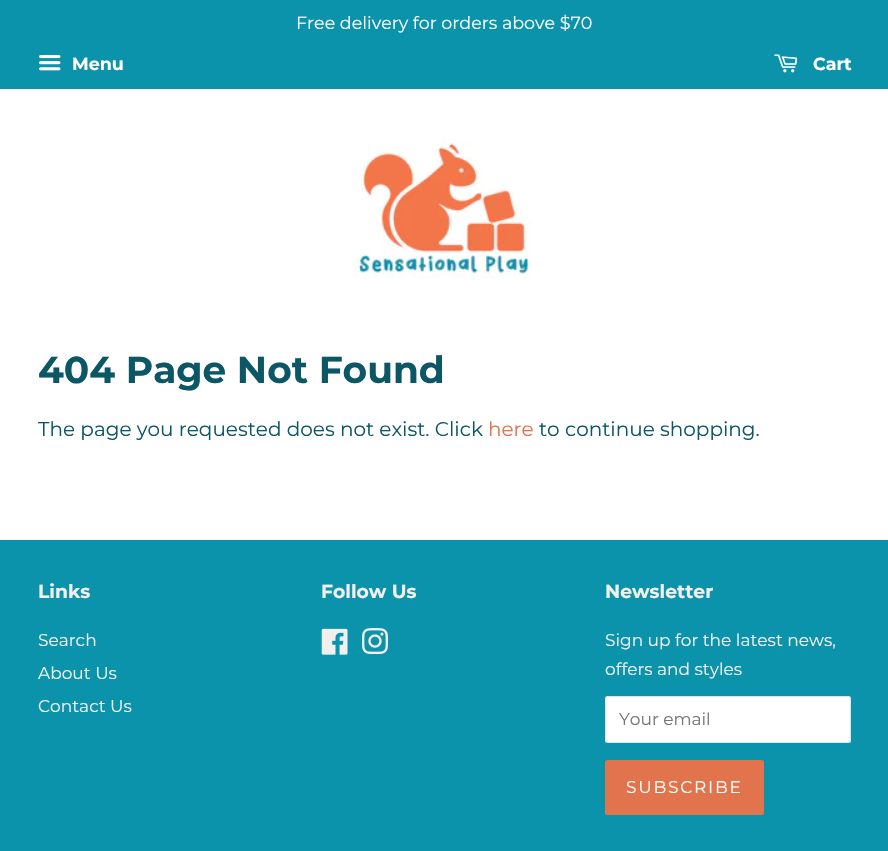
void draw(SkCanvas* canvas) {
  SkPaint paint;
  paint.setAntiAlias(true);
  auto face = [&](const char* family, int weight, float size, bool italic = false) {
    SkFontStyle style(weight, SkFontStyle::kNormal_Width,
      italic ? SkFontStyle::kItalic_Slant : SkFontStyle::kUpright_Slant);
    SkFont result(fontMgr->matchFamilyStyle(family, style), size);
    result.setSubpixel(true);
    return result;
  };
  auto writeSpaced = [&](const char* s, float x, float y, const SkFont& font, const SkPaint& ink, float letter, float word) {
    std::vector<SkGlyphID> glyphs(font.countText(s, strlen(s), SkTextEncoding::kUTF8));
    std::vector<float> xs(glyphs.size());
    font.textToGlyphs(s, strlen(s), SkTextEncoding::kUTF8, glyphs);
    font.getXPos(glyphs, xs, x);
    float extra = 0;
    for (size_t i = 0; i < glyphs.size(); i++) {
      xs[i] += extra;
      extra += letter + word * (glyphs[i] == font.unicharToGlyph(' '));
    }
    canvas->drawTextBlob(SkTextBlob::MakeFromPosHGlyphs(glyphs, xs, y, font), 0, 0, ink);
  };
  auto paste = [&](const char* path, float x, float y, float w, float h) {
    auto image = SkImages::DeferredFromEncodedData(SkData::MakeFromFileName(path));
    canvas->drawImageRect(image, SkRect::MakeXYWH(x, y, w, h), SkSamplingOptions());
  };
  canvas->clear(0xffffffff);
  paint.setColor(0xff0b93ac);
  canvas->drawRect(SkRect::MakeXYWH(0, 0, 888, 89), paint);
  paste("img/1.png", 39, 55, 22, 16);
  paste("img/2.png", 774, 54, 24, 19);
  paste("img/3.png", 352, 139, 180, 140);
  canvas->drawRect(SkRect::MakeXYWH(0, 540, 888, 311), paint);
  paste("img/4.png", 321, 628, 27, 27);
  paste("img/5.png", 362, 628, 26, 26);
  paint.setColor(0xffffffff);
  canvas->drawRoundRect(SkRect::MakeXYWH(605, 696, 246, 47), 2.5f, 2.5f, paint);
  paint.setStroke(true);
  paint.setStrokeWidth(1);
  paint.setColor(0x260c5765);
  canvas->drawRoundRect(SkRect::MakeXYWH(605.5f, 696.5f, 245, 46), 2, 2, paint);
  paint.setStroke(false);
  paint.setColor(0xffe1744d);
  canvas->drawRoundRect(SkRect::MakeXYWH(605, 760, 159, 55), 2.5f, 2.5f, paint);
  auto f0 = face("Montserrat", 400, 17.5f);
  paint.setColor(0xffffffff);
  canvas->drawString("Free delivery for orders above $70", 296, 29, f0, paint);
  auto f1 = face("Montserrat", 700, 17.5f);
  canvas->drawString("Menu", 72, 70, f1, paint);
  canvas->drawString("Cart", 813, 70, f1, paint);
  auto f2 = face("Montserrat", 700, 37.5f);
  paint.setColor(0xff0c5765);
  canvas->drawString("404 Page Not Found", 38, 383, f2, paint);
  auto f3 = face("Montserrat", 400, 20);
  canvas->drawString("The page you requested does not exist. Click", 38, 436, f3, paint);
  paint.setColor(0xffe1744d);
  canvas->drawString("here", 488, 436, f3, paint);
  paint.setColor(0xff0c5765);
  canvas->drawString("to continue shopping.", 539, 436, f3, paint);
  auto f4 = face("Montserrat", 700, 18.75f);
  paint.setColor(0xfff2f0ee);
  canvas->drawString("Links", 38, 598, f4, paint);
  auto f5 = face("Montserrat", 400, 17);
  {
    const struct { const char* s; float x, y; } items[] = {
      {"Search", 38, 646},
      {"About Us", 38, 679},
      {"Contact Us", 38, 712},
    };
    for (auto [s, x, y] : items) {
      canvas->drawString(s, x, y, f5, paint);
    }
  }
  canvas->drawString("Follow Us", 321, 598, f4, paint);
  canvas->drawString("Newsletter", 605, 598, f4, paint);
  canvas->drawString("Sign up for the latest news,", 605, 646, f5, paint);
  canvas->drawString("offers and styles", 605, 675, f5, paint);
  paint.setColor(0xff757575);
  canvas->drawString("Your email", 619, 725, f5, paint);
  paint.setColor(0xffffffff);
  writeSpaced("SUBSCRIBE", 626, 793, f5, paint, 1.75f, 0);
}
